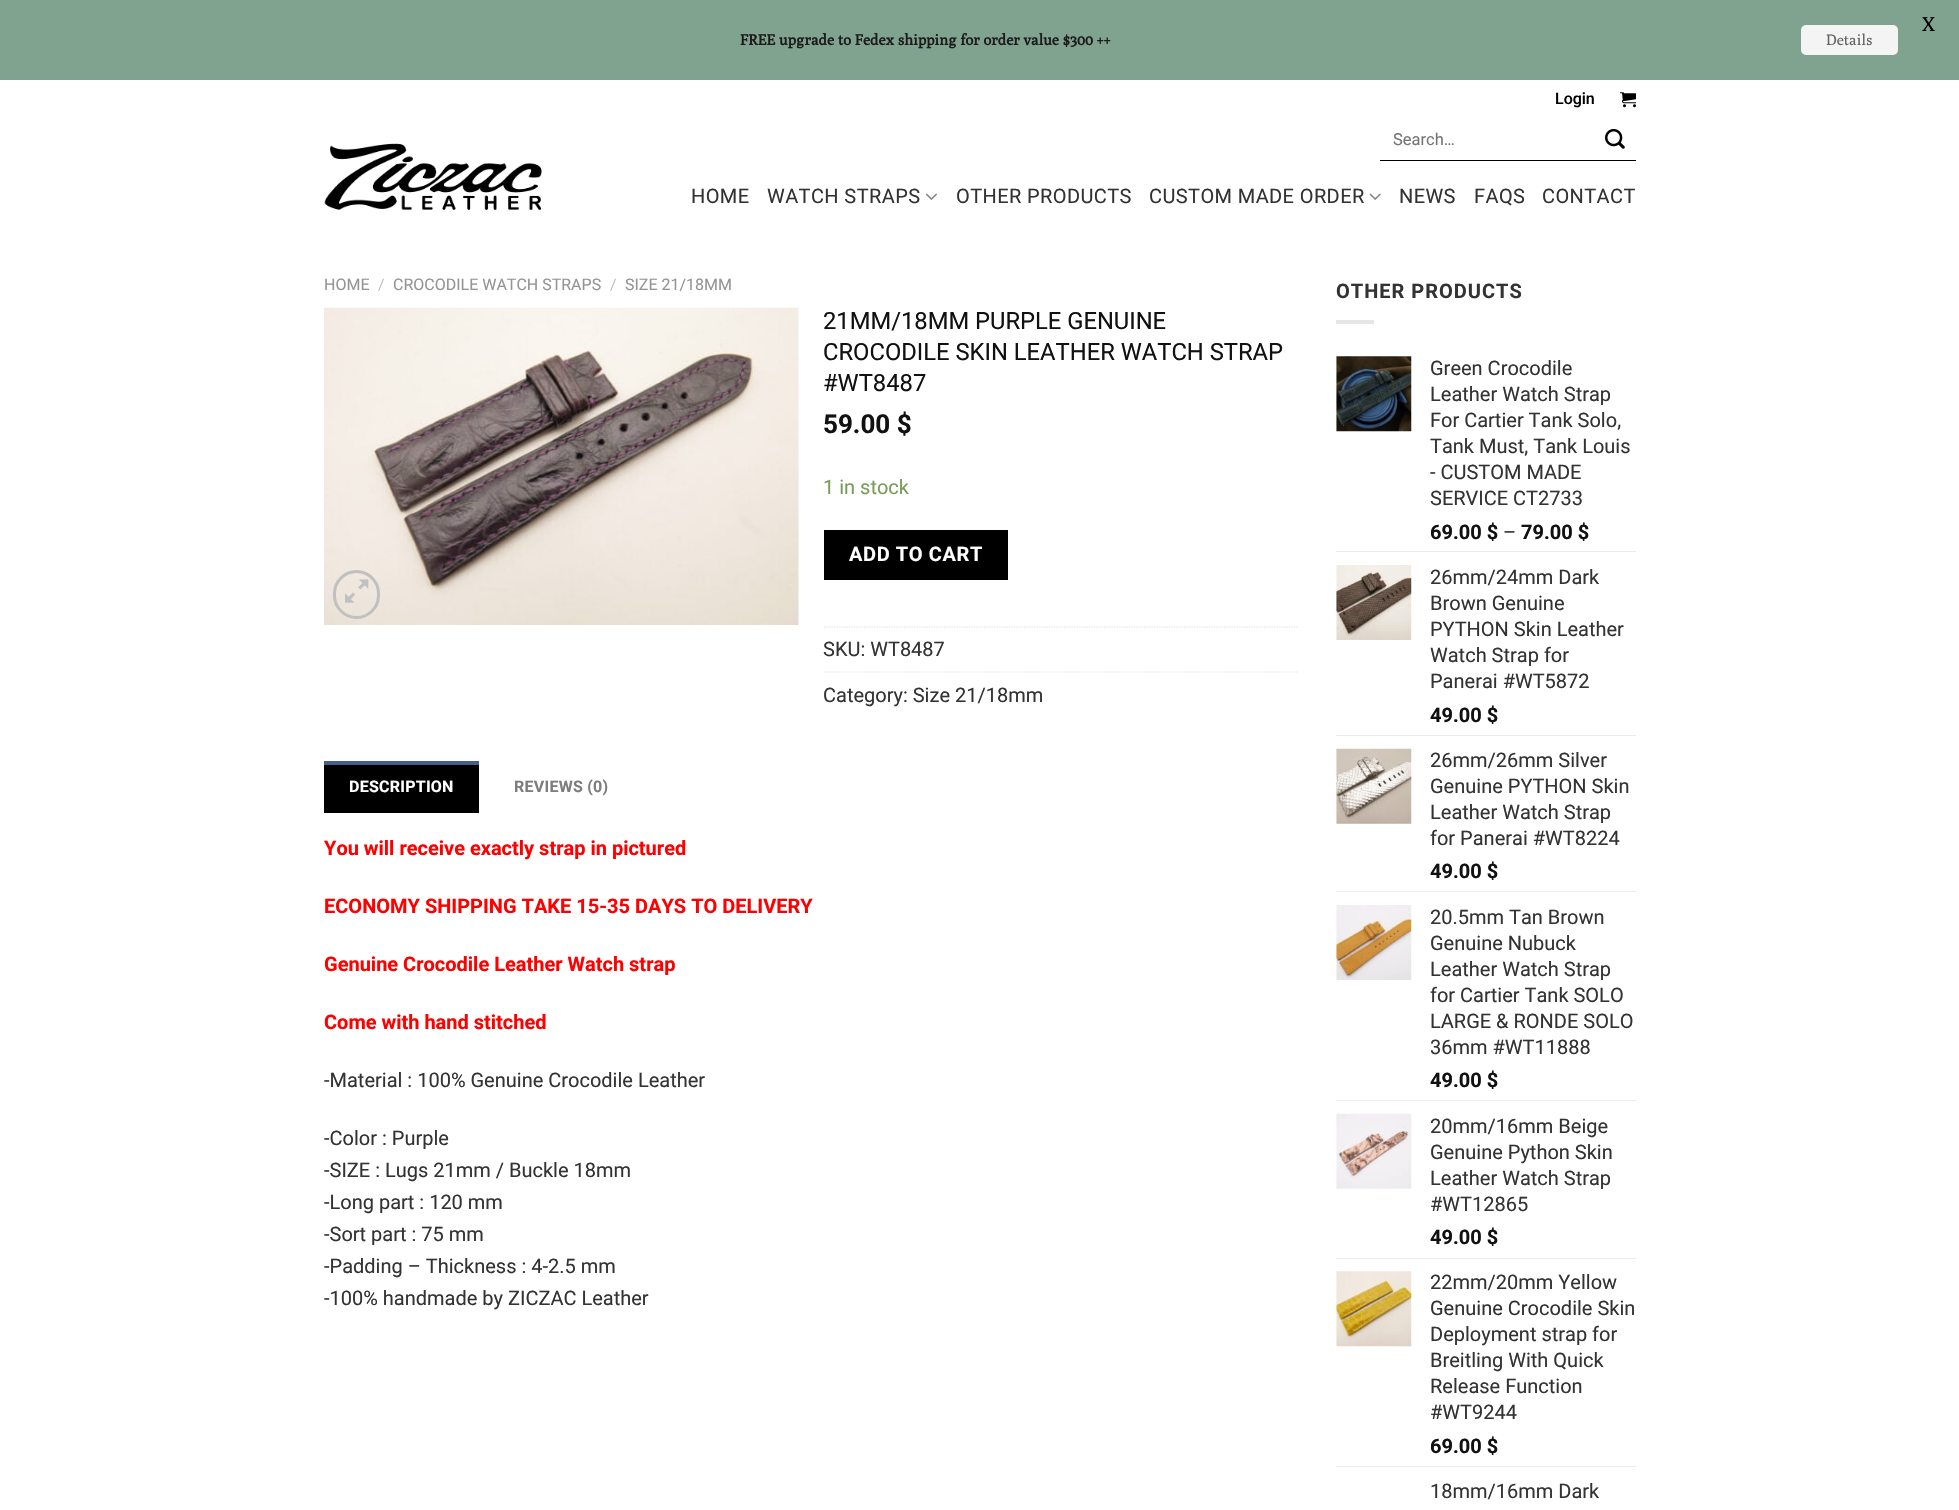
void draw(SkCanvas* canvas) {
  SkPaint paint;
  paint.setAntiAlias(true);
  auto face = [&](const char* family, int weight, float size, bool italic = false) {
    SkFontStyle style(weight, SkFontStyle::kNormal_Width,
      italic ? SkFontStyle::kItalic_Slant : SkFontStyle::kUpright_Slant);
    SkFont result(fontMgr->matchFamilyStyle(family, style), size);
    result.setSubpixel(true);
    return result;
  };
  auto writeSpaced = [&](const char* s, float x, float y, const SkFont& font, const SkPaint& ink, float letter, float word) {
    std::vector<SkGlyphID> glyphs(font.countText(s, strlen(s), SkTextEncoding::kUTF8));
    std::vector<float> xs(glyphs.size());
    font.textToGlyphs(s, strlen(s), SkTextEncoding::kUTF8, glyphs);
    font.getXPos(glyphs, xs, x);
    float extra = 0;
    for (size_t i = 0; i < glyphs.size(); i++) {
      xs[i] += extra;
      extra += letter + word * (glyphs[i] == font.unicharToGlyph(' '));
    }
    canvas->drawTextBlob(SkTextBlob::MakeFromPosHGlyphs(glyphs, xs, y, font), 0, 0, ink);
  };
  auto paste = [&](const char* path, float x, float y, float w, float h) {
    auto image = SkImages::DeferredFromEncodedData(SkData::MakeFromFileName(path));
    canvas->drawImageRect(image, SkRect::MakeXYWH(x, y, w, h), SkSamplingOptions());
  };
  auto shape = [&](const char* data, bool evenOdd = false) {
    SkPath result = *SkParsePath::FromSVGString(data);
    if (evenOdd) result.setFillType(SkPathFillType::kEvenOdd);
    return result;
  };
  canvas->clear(0xffffffff);
  paint.setColor(0xff80a38f);
  canvas->drawRect(SkRect::MakeXYWH(0, 0, 1959, 80), paint);
  paint.setColor(0xfff4f4f4);
  canvas->drawRoundRect(SkRect::MakeXYWH(1801, 25, 97, 30), 5, 5, paint);
  paste("img/1.png", 1620, 92, 16, 16);
  paste("img/2.png", 324, 143, 218, 68);
  paint.setColor(0xff000000);
  canvas->drawRect(SkRect::MakeXYWH(1380, 160, 256, 1), paint);
  paste("img/3.png", 1605, 128, 20, 21);
  paste("img/4.png", 925, 193, 12, 7);
  paste("img/5.png", 1369, 193, 12, 7);
  paste("img/6.png", 324, 307, 475, 318);
  paint.setStroke(true);
  paint.setStrokeWidth(3);
  paint.setColor(0xffc0c0c0);
  canvas->drawRoundRect(SkRect::MakeXYWH(334.5f, 571.5f, 44, 46), 22, 22, paint);
  paste("img/7.png", 345, 579, 24, 24);
  paint.setStroke(false);
  paint.setColor(0xff000000);
  canvas->drawRect(SkRect::MakeXYWH(824, 530, 184, 50), paint);
  paint.setStroke(true);
  paint.setStrokeWidth(1.2f);
  paint.setColor(0xffdddddd);
  paint.setPathEffect(SkDashPathEffect::Make({{1.25f, 1.25f}}, 0));
  canvas->drawPath(shape("M824 627H1299"), paint);
  paint.setPathEffect(nullptr);
  paint.setPathEffect(SkDashPathEffect::Make({{1.25f, 1.25f}}, 0));
  canvas->drawPath(shape("M824 672H1299"), paint);
  paint.setPathEffect(nullptr);
  paint.setStroke(false);
  {
    const struct { float x, y, w, h; SkColor color; } items[] = {
      {324, 765, 155, 48, 0xff000000},
      {324, 761, 155, 4, 0xff446084},
      {1336, 320, 38, 4, 0xffe6e6e6},
    };
    for (auto [x, y, w, h, color] : items) {
      paint.setColor(color);
      canvas->drawRect(SkRect::MakeXYWH(x, y, w, h), paint);
    }
  }
  paste("img/8.png", 1336, 356, 76, 76);
  paint.setColor(0xffececec);
  canvas->drawRect(SkRect::MakeXYWH(1336, 551, 300, 1), paint);
  paste("img/9.png", 1336, 565, 76, 75);
  canvas->drawRect(SkRect::MakeXYWH(1336, 735, 300, 1), paint);
  paste("img/10.png", 1336, 748, 76, 76);
  canvas->drawRect(SkRect::MakeXYWH(1336, 891, 300, 1), paint);
  paste("img/11.png", 1336, 905, 76, 75);
  canvas->drawRect(SkRect::MakeXYWH(1336, 1100, 300, 1), paint);
  paste("img/12.png", 1336, 1113, 76, 76);
  canvas->drawRect(SkRect::MakeXYWH(1336, 1258, 300, 1), paint);
  paste("img/13.png", 1336, 1271, 76, 76);
  canvas->drawRect(SkRect::MakeXYWH(1336, 1466, 300, 1), paint);
  auto f0 = face("Poly", 400, 20);
  paint.setColor(0xff000000);
  canvas->drawString("X", 1922, 31, f0, paint);
  auto f1 = face("Poly", 700, 15);
  paint.setColor(0xff1c1c1c);
  canvas->drawString("FREE upgrade to Fedex shipping for order value $300 ++", 740, 45, f1, paint);
  auto f2 = face("Poly", 400, 15);
  paint.setColor(0xff636363);
  canvas->drawString("Details", 1826, 45, f2, paint);
  auto f3 = face("Roboto", 500, 16);
  paint.setColor(0xff000000);
  canvas->drawString("Login", 1555, 104, f3, paint);
  auto f4 = face("Roboto", 400, 16.5f);
  paint.setColor(0xff757575);
  canvas->drawString("Search…", 1393, 145, f4, paint);
  auto f5 = face("Roboto", 400, 20);
  paint.setColor(0xff333333);
  {
    const struct { const char* s; float x, y; } items[] = {
      {"HOME", 691, 203},
      {"WATCH STRAPS", 767, 203},
      {"OTHER PRODUCTS", 956, 203},
      {"CUSTOM MADE ORDER", 1149, 203},
      {"NEWS", 1399, 203},
      {"FAQS", 1474, 203},
      {"CONTACT", 1542, 203},
    };
    for (auto [s, x, y] : items) {
      writeSpaced(s, x, y, f5, paint, 0.4f, 0);
    }
  }
  auto f6 = face("Roboto", 400, 16);
  paint.setColor(0xff949494);
  canvas->drawString("HOME", 324, 290, f6, paint);
  auto f7 = face("Roboto", 300, 16);
  paint.setColor(0xffb2b2b2);
  canvas->drawString("/", 378, 290, f7, paint);
  paint.setColor(0xff949494);
  canvas->drawString("CROCODILE WATCH STRAPS", 393, 290, f6, paint);
  paint.setColor(0xffb2b2b2);
  canvas->drawString("/", 610, 290, f7, paint);
  paint.setColor(0xff949494);
  canvas->drawString("SIZE 21/18MM", 625, 290, f6, paint);
  auto f8 = face("Roboto", 400, 23.75f);
  paint.setColor(0xff111111);
  {
    const struct { const char* s; float x, y; } items[] = {
      {"21MM/18MM PURPLE GENUINE", 823, 329},
      {"CROCODILE SKIN LEATHER WATCH STRAP", 823, 360},
      {"#WT8487", 823, 391},
    };
    for (auto [s, x, y] : items) {
      canvas->drawString(s, x, y, f8, paint);
    }
  }
  auto f9 = face("Roboto", 700, 26);
  canvas->drawString("59.00 $", 823, 433, f9, paint);
  paint.setColor(0xff7a9c59);
  canvas->drawString("1 in stock", 823, 494, f5, paint);
  auto f10 = face("Roboto", 700, 20);
  paint.setColor(0xffffffff);
  writeSpaced("ADD TO CART", 849, 561, f10, paint, 0.6f, 0);
  paint.setColor(0xff333333);
  canvas->drawString("SKU: WT8487", 823, 656, f5, paint);
  canvas->drawString("Category: Size 21/18mm", 823, 702, f5, paint);
  auto f11 = face("Roboto", 700, 16);
  paint.setColor(0xffffffff);
  writeSpaced("DESCRIPTION", 349, 792, f11, paint, 0.25f, 0);
  paint.setColor(0xff7d7d7d);
  writeSpaced("REVIEWS (0)", 514, 792, f11, paint, 0.25f, 0);
  paint.setColor(0xffff0000);
  {
    const struct { const char* s; float x, y; } items[] = {
      {"You will receive exactly strap in pictured", 324, 855},
      {"ECONOMY SHIPPING TAKE 15-35 DAYS TO DELIVERY", 324, 913},
      {"Genuine Crocodile Leather Watch strap", 324, 971},
      {"Come with hand stitched", 324, 1029},
    };
    for (auto [s, x, y] : items) {
      canvas->drawString(s, x, y, f10, paint);
    }
  }
  paint.setColor(0xff333333);
  {
    const struct { const char* s; float x, y; } items[] = {
      {"-Material : 100% Genuine Crocodile Leather", 324, 1087},
      {"-Color : Purple", 324, 1145},
      {"-SIZE : Lugs 21mm / Buckle 18mm", 324, 1177},
      {"-Long part : 120 mm", 324, 1209},
      {"-Sort part : 75 mm", 324, 1241},
      {"-Padding – Thickness : 4-2.5 mm", 324, 1273},
      {"-100% handmade by ZICZAC Leather", 324, 1305},
    };
    for (auto [s, x, y] : items) {
      canvas->drawString(s, x, y, f5, paint);
    }
  }
  writeSpaced("OTHER PRODUCTS", 1336, 298, f10, paint, 1, 0);
  {
    const struct { const char* s; float x, y; } items[] = {
      {"Green Crocodile", 1430, 375},
      {"Leather Watch Strap", 1430, 401},
      {"For Cartier Tank Solo,", 1430, 427},
      {"Tank Must, Tank Louis", 1430, 453},
      {"- CUSTOM MADE", 1430, 479},
      {"SERVICE CT2733", 1430, 505},
    };
    for (auto [s, x, y] : items) {
      canvas->drawString(s, x, y, f5, paint);
    }
  }
  paint.setColor(0xff111111);
  canvas->drawString("69.00 $", 1430, 539, f10, paint);
  paint.setColor(0xff333333);
  canvas->drawString("–", 1503, 539, f5, paint);
  paint.setColor(0xff111111);
  canvas->drawString("79.00 $", 1521, 539, f10, paint);
  paint.setColor(0xff333333);
  {
    const struct { const char* s; float x, y; } items[] = {
      {"26mm/24mm Dark", 1430, 584},
      {"Brown Genuine", 1430, 610},
      {"PYTHON Skin Leather", 1430, 636},
      {"Watch Strap for", 1430, 662},
      {"Panerai #WT5872", 1430, 688},
    };
    for (auto [s, x, y] : items) {
      canvas->drawString(s, x, y, f5, paint);
    }
  }
  paint.setColor(0xff111111);
  canvas->drawString("49.00 $", 1430, 722, f10, paint);
  paint.setColor(0xff333333);
  {
    const struct { const char* s; float x, y; } items[] = {
      {"26mm/26mm Silver", 1430, 767},
      {"Genuine PYTHON Skin", 1430, 793},
      {"Leather Watch Strap", 1430, 819},
      {"for Panerai #WT8224", 1430, 845},
    };
    for (auto [s, x, y] : items) {
      canvas->drawString(s, x, y, f5, paint);
    }
  }
  paint.setColor(0xff111111);
  canvas->drawString("49.00 $", 1430, 878, f10, paint);
  paint.setColor(0xff333333);
  {
    const struct { const char* s; float x, y; } items[] = {
      {"20.5mm Tan Brown", 1430, 924},
      {"Genuine Nubuck", 1430, 950},
      {"Leather Watch Strap", 1430, 976},
      {"for Cartier Tank SOLO", 1430, 1002},
      {"LARGE & RONDE SOLO", 1430, 1028},
      {"36mm #WT11888", 1430, 1054},
    };
    for (auto [s, x, y] : items) {
      canvas->drawString(s, x, y, f5, paint);
    }
  }
  paint.setColor(0xff111111);
  canvas->drawString("49.00 $", 1430, 1087, f10, paint);
  paint.setColor(0xff333333);
  {
    const struct { const char* s; float x, y; } items[] = {
      {"20mm/16mm Beige", 1430, 1133},
      {"Genuine Python Skin", 1430, 1159},
      {"Leather Watch Strap", 1430, 1185},
      {"#WT12865", 1430, 1211},
    };
    for (auto [s, x, y] : items) {
      canvas->drawString(s, x, y, f5, paint);
    }
  }
  paint.setColor(0xff111111);
  canvas->drawString("49.00 $", 1430, 1244, f10, paint);
  paint.setColor(0xff333333);
  {
    const struct { const char* s; float x, y; } items[] = {
      {"22mm/20mm Yellow", 1430, 1289},
      {"Genuine Crocodile Skin", 1430, 1315},
      {"Deployment strap for", 1430, 1341},
      {"Breitling With Quick", 1430, 1367},
      {"Release Function", 1430, 1393},
      {"#WT9244", 1430, 1419},
    };
    for (auto [s, x, y] : items) {
      canvas->drawString(s, x, y, f5, paint);
    }
  }
  paint.setColor(0xff111111);
  canvas->drawString("69.00 $", 1430, 1453, f10, paint);
  paint.setColor(0xff333333);
  canvas->drawString("18mm/16mm Dark", 1430, 1498, f5, paint);
}
